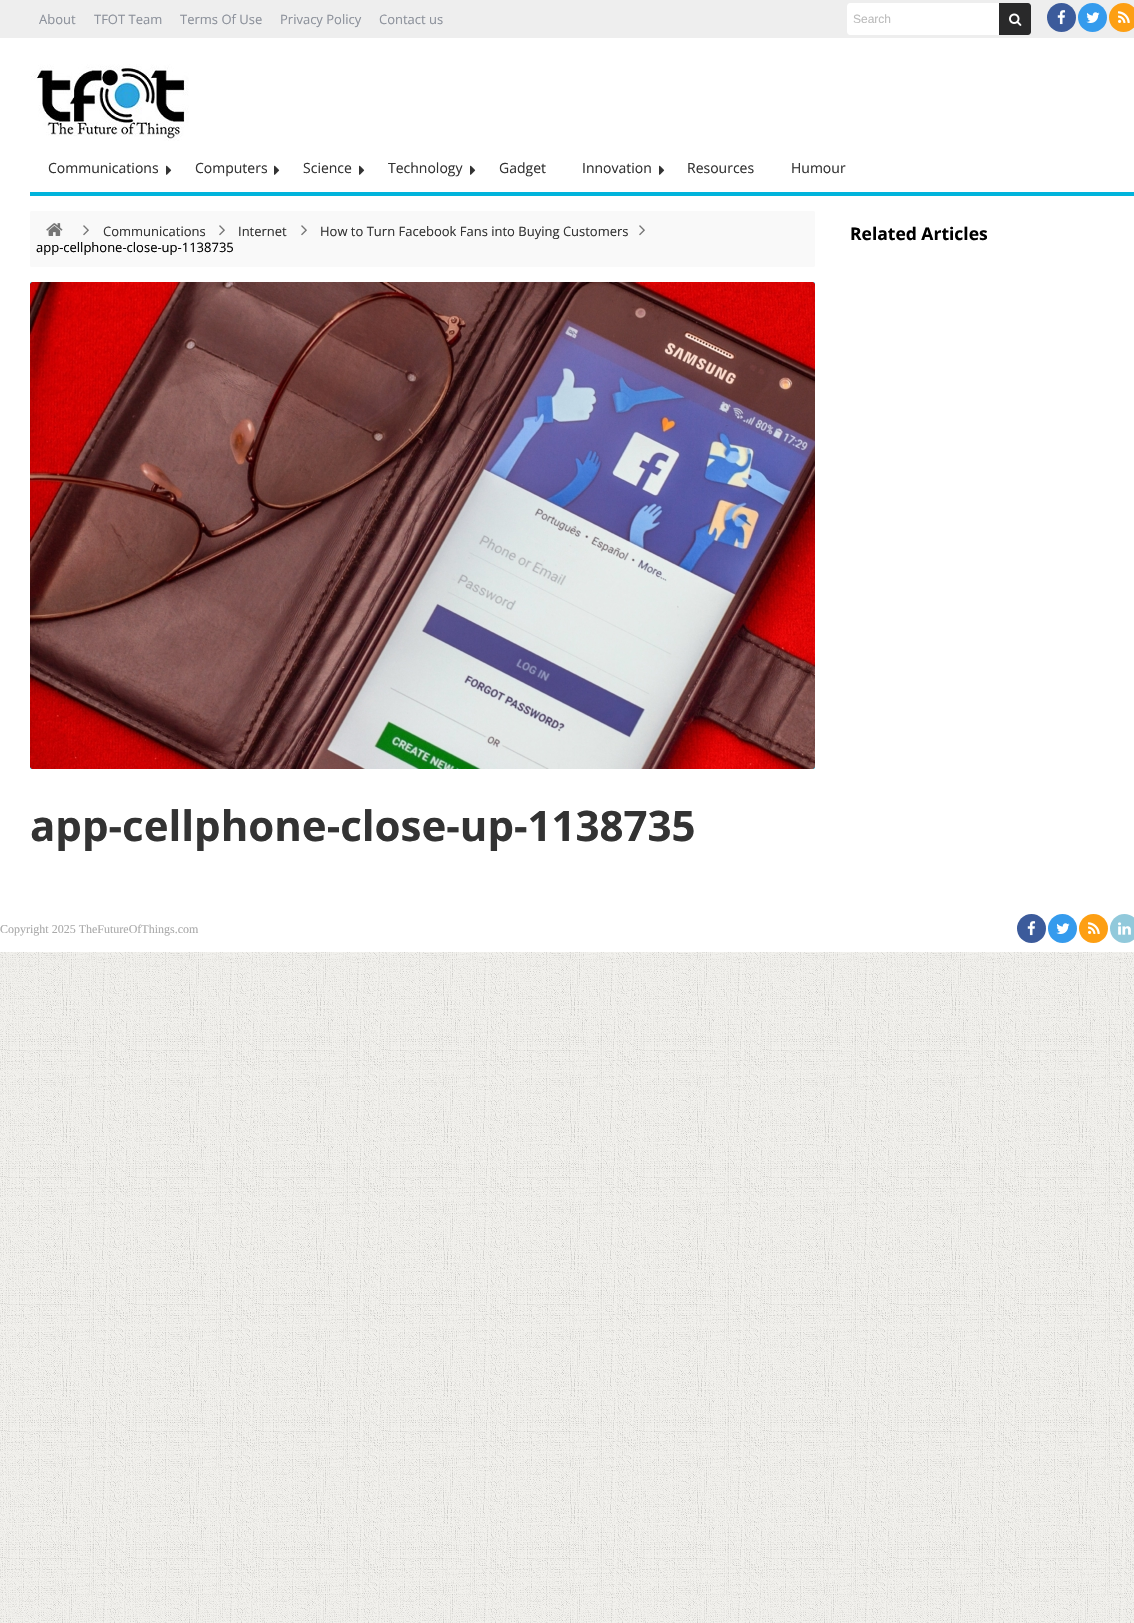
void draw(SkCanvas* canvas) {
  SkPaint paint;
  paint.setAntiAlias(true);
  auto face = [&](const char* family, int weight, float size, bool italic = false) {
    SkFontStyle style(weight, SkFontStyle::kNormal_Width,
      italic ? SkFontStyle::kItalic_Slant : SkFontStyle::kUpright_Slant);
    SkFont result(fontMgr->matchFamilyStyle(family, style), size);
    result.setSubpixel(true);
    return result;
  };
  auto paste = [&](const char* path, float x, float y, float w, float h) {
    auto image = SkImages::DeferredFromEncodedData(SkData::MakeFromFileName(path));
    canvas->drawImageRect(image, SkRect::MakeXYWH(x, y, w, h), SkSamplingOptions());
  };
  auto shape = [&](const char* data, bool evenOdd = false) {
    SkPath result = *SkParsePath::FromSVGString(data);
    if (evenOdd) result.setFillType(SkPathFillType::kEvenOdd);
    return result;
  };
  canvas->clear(0xffffffff);
  paste("img/1.png", 0, 952, 1134, 671);
  paint.setColor(0xffeeeeee);
  canvas->drawRect(SkRect::MakeXYWH(0, 0, 1134, 38), paint);
  paint.setColor(0xffffffff);
  canvas->drawPath(shape("M850 3H999V35H850C848.5 35 847 33.5 847 32V6C847 4.5 848.5 3 850 3Z"), paint);
  paint.setColor(0xff29292a);
  canvas->drawPath(shape("M999 3H1028C1029.5 3 1031 4.5 1031 6V32C1031 33.5 1029.5 35 1028 35H999Z"), paint);
  paste("img/2.png", 1009, 13, 13, 13);
  paint.setColor(0xff3c5b9b);
  canvas->drawCircle(1061.5f, 17.5f, 14.5f, paint);
  paste("img/3.png", 1057, 10, 9, 15);
  paint.setColor(0xff359bed);
  canvas->drawCircle(1092.5f, 17.5f, 14.5f, paint);
  paste("img/4.png", 1086, 12, 14, 11);
  paint.setColor(0xfffd9f13);
  canvas->drawCircle(1123.5f, 17.5f, 14.5f, paint);
  paste("img/5.png", 1118, 11, 12, 12);
  paste("img/6.png", 31, 64, 158, 77);
  paint.setColor(0xff00b4dc);
  canvas->drawRect(SkRect::MakeXYWH(30, 192, 1104, 4), paint);
  paste("img/7.png", 166, 165, 6, 10);
  paste("img/7.png", 274, 165, 6, 10);
  paste("img/7.png", 359, 165, 6, 10);
  paste("img/7.png", 470, 165, 6, 10);
  paste("img/7.png", 659, 165, 6, 10);
  paint.setColor(0xfff9f9f9);
  canvas->drawRoundRect(SkRect::MakeXYWH(30, 211, 785, 56), 2, 2, paint);
  paste("img/8.png", 46, 223, 17, 13);
  paste("img/9.png", 83, 225, 6, 11);
  paste("img/9.png", 219, 225, 6, 11);
  paste("img/9.png", 301, 225, 6, 11);
  paste("img/9.png", 639, 225, 6, 11);
  paint.setColor(0xff00b4dc);
  canvas->drawRoundRect(SkRect::MakeXYWH(30, 282, 785, 487), 2, 2, paint);
  paste("img/10.png", 30, 282, 785, 487);
  paint.setColor(0xff3c5b9b);
  canvas->drawCircle(1031.5f, 928.5f, 14.5f, paint);
  paste("img/3.png", 1027, 921, 9, 15);
  paint.setColor(0xff359bed);
  canvas->drawCircle(1062.5f, 928.5f, 14.5f, paint);
  paste("img/4.png", 1056, 923, 14, 11);
  paint.setColor(0xfffd9f13);
  canvas->drawCircle(1093.5f, 928.5f, 14.5f, paint);
  paste("img/5.png", 1088, 922, 12, 12);
  paint.setColor(0xff91c9db);
  canvas->drawCircle(1124.5f, 928.5f, 14.5f, paint);
  paste("img/11.png", 1118, 922, 13, 13);
  auto f0 = face("Open Sans", 400, 13);
  paint.setColor(0xff8c919b);
  {
    const struct { const char* s; float x, y; } items[] = {
      {"About", 39, 24},
      {"TFOT Team", 94, 24},
      {"Terms Of Use", 180, 24},
      {"Privacy Policy", 280, 24},
      {"Contact us", 379, 24},
    };
    for (auto [s, x, y] : items) {
      canvas->drawString(s, x, y, f0, paint);
    }
  }
  auto f1 = face("Liberation Sans", 400, 12);
  paint.setColor(0xffbbbbbb);
  canvas->drawString("Search", 853, 23, f1, paint);
  auto f2 = face("Open Sans", 400, 14);
  paint.setColor(0xff333333);
  {
    const struct { const char* s; float x, y; } items[] = {
      {"Communications", 48, 173},
      {"Computers", 195, 173},
      {"Science", 303, 173},
      {"Technology", 388, 173},
      {"Gadget", 499, 173},
      {"Innovation", 582, 173},
      {"Resources", 687, 173},
      {"Humour", 791, 173},
    };
    for (auto [s, x, y] : items) {
      canvas->drawString(s, x, y, f2, paint);
    }
  }
  {
    const struct { const char* s; float x, y; } items[] = {
      {"Communications", 103, 236},
      {"Internet", 238, 236},
      {"How to Turn Facebook Fans into Buying Customers", 320, 236},
    };
    for (auto [s, x, y] : items) {
      canvas->drawString(s, x, y, f0, paint);
    }
  }
  paint.setColor(0xff000000);
  canvas->drawString("app-cellphone-close-up-1138735", 36, 252, f0, paint);
  auto f3 = face("Open Sans", 700, 42);
  paint.setColor(0xff333333);
  canvas->drawString("app-cellphone-close-up-1138735", 30, 841, f3, paint);
  auto f4 = face("Open Sans", 700, 17.5f);
  paint.setColor(0xff000000);
  canvas->drawString("Related Articles", 850, 240, f4, paint);
  auto f5 = face("Liberation Serif", 400, 12);
  paint.setColor(0xffaaaaaa);
  canvas->drawString("Copyright 2025 TheFutureOfThings.com", 0, 933, f5, paint);
}
